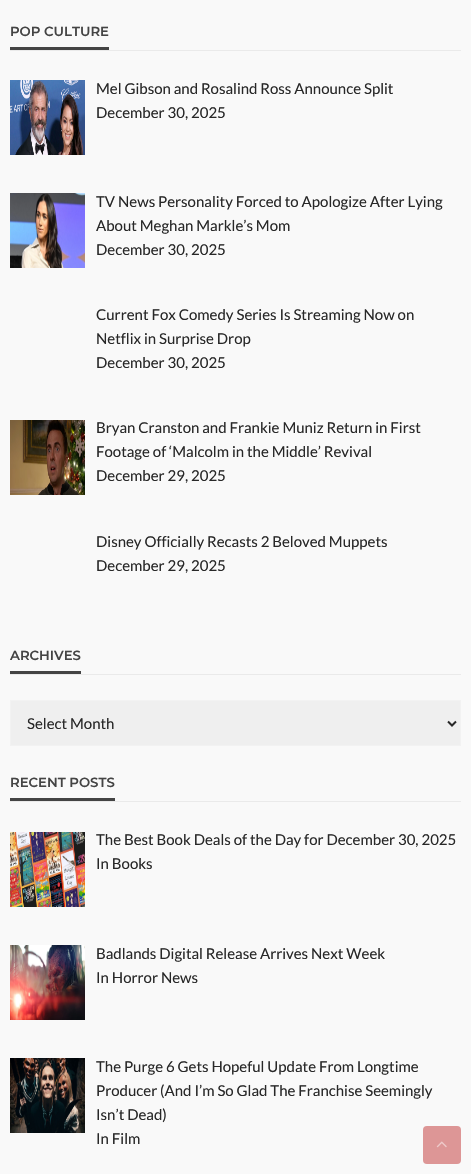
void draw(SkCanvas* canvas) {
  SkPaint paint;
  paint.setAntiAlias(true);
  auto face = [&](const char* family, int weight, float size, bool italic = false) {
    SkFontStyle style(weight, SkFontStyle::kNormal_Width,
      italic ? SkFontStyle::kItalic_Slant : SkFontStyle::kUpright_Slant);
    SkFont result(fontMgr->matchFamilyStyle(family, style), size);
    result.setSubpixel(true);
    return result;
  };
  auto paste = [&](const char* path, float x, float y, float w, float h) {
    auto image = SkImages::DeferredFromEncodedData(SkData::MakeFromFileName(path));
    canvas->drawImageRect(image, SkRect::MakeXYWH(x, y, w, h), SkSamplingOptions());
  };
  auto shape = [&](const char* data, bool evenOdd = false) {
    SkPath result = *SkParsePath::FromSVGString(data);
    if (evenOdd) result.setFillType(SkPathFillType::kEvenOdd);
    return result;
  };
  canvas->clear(0xfff9f9f9);
  paint.setColor(0xffeaeaea);
  canvas->drawRect(SkRect::MakeXYWH(10, 50, 451, 1), paint);
  paint.setColor(0xff444444);
  canvas->drawRect(SkRect::MakeXYWH(10, 47, 99, 3), paint);
  paste("img/1.png", 10, 80, 75, 75);
  paste("img/2.png", 10, 193, 75, 75);
  paste("img/3.png", 10, 420, 75, 75);
  paint.setColor(0xffeaeaea);
  canvas->drawRect(SkRect::MakeXYWH(10, 674, 451, 1), paint);
  paint.setColor(0xff444444);
  canvas->drawRect(SkRect::MakeXYWH(10, 671, 71, 3), paint);
  paint.setColor(0xffefefef);
  canvas->drawRect(SkRect::MakeXYWH(10.5f, 700.5f, 450, 45), paint);
  paint.setStroke(true);
  paint.setStrokeWidth(1);
  paint.setColor(0xfff2f2f2);
  canvas->drawRect(SkRect::MakeXYWH(10.5f, 700.5f, 450, 45), paint);
  paint.setStrokeWidth(2);
  paint.setColor(0xff282828);
  canvas->drawPath(shape("M448 721.5L452 725.5L456 721.5"), paint);
  paint.setStroke(false);
  paint.setColor(0xffeaeaea);
  canvas->drawRect(SkRect::MakeXYWH(10, 801, 451, 1), paint);
  paint.setColor(0xff444444);
  canvas->drawRect(SkRect::MakeXYWH(10, 798, 105, 3), paint);
  paste("img/4.png", 10, 832, 75, 75);
  paste("img/5.png", 10, 945, 75, 75);
  paste("img/6.png", 10, 1058, 75, 75);
  paint.setColor(0xffdd9696);
  canvas->drawRoundRect(SkRect::MakeXYWH(423, 1126, 38, 38), 4, 4, paint);
  paste("img/7.png", 436, 1141, 11, 7);
  auto f0 = face("Montserrat", 600, 13.25f);
  paint.setColor(0xff444444);
  canvas->drawString("POP CULTURE", 10, 36, f0, paint);
  auto f1 = face("Lato", 400, 15);
  paint.setColor(0xff282828);
  {
    const struct { const char* s; float x, y; } items[] = {
      {"Mel Gibson and Rosalind Ross Announce Split", 96, 94},
      {"December 30, 2025", 96, 118},
      {"TV News Personality Forced to Apologize After Lying", 96, 207},
      {"About Meghan Markle’s Mom", 96, 231},
      {"December 30, 2025", 96, 255},
      {"Current Fox Comedy Series Is Streaming Now on", 96, 320},
      {"Netflix in Surprise Drop", 96, 344},
      {"December 30, 2025", 96, 368},
      {"Bryan Cranston and Frankie Muniz Return in First", 96, 433},
      {"Footage of ‘Malcolm in the Middle’ Revival", 96, 457},
      {"December 29, 2025", 96, 481},
      {"Disney Officially Recasts 2 Beloved Muppets", 96, 547},
      {"December 29, 2025", 96, 571},
    };
    for (auto [s, x, y] : items) {
      canvas->drawString(s, x, y, f1, paint);
    }
  }
  paint.setColor(0xff444444);
  canvas->drawString("ARCHIVES", 10, 660, f0, paint);
  paint.setColor(0xff282828);
  canvas->drawString("Select Month", 27, 729, f1, paint);
  paint.setColor(0xff444444);
  canvas->drawString("RECENT POSTS", 10, 787, f0, paint);
  paint.setColor(0xff282828);
  {
    const struct { const char* s; float x, y; } items[] = {
      {"The Best Book Deals of the Day for December 30, 2025", 96, 845},
      {"In Books", 96, 869},
      {"Badlands Digital Release Arrives Next Week", 96, 959},
      {"In Horror News", 96, 983},
      {"The Purge 6 Gets Hopeful Update From Longtime", 96, 1072},
      {"Producer (And I’m So Glad The Franchise Seemingly", 96, 1096},
      {"Isn’t Dead)", 96, 1120},
      {"In Film", 96, 1144},
    };
    for (auto [s, x, y] : items) {
      canvas->drawString(s, x, y, f1, paint);
    }
  }
}
